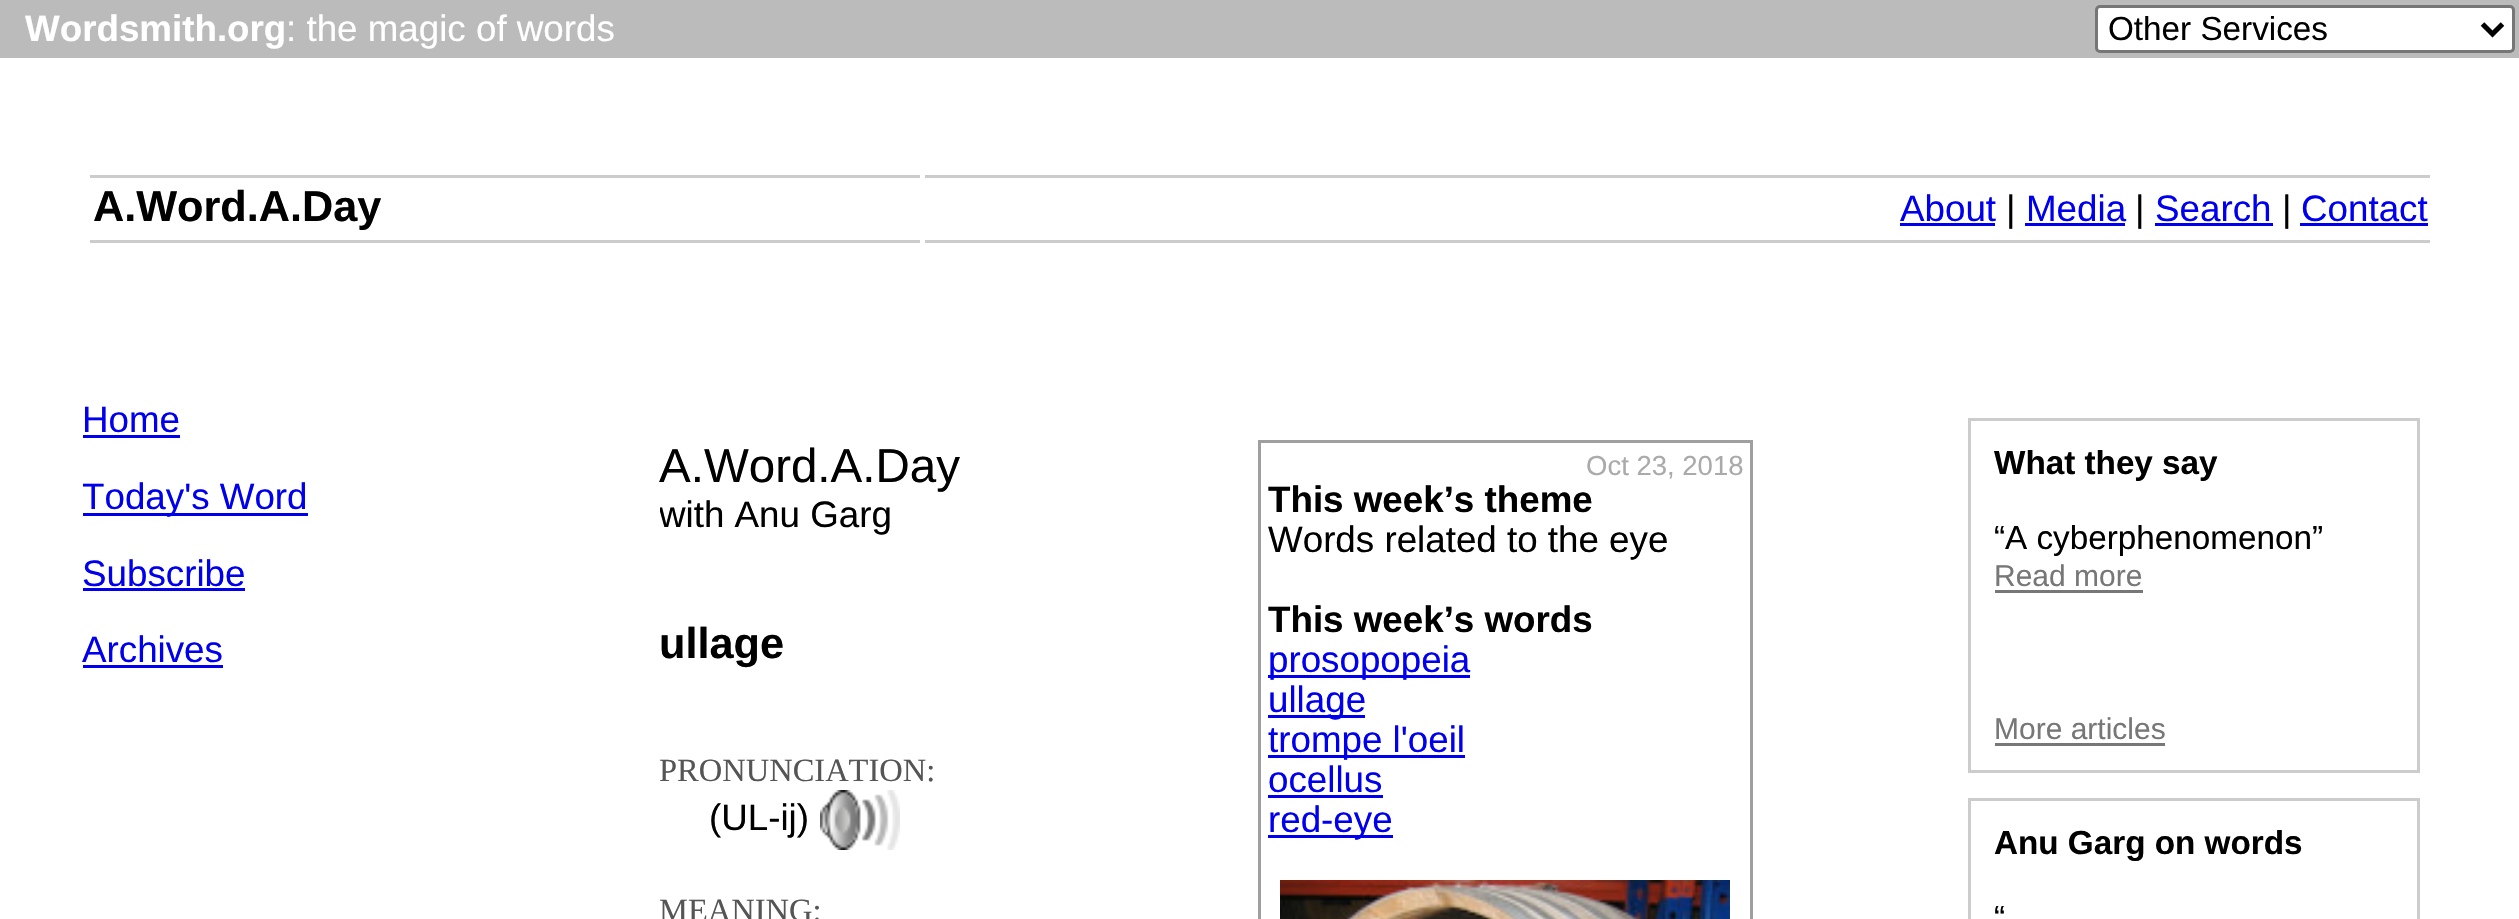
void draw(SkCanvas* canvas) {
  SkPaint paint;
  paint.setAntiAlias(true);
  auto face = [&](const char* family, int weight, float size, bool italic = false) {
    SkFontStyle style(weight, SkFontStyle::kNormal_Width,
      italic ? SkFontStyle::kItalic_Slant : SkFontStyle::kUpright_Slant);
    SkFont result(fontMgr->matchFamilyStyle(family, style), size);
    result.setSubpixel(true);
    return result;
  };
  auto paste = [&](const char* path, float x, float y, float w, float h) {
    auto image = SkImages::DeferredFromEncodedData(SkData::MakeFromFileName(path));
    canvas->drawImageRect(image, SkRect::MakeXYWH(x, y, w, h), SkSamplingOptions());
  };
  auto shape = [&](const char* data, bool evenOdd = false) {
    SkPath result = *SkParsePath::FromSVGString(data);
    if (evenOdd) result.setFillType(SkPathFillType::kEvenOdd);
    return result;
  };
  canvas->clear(0xffffffff);
  paint.setColor(0xffbbbbbb);
  canvas->drawRect(SkRect::MakeXYWH(0, 0, 2519, 58), paint);
  paint.setColor(0xffffffff);
  canvas->drawRoundRect(SkRect::MakeXYWH(2096.5f, 6.5f, 417, 45), 3.5f, 3.5f, paint);
  paint.setStroke(true);
  paint.setStrokeWidth(3);
  paint.setColor(0xff767676);
  canvas->drawRoundRect(SkRect::MakeXYWH(2096.5f, 6.5f, 417, 45), 3.5f, 3.5f, paint);
  paint.setStrokeWidth(5);
  paint.setColor(0xff000000);
  canvas->drawPath(shape("M2482.5 24L2492.5 34L2502.5 24"), paint);
  paint.setStroke(false);
  {
    const struct { float x, y, w, h; SkColor color; } items[] = {
      {90, 175, 830, 3, 0xffcccccc},
      {90, 240, 830, 3, 0xffcccccc},
      {925, 175, 1505, 3, 0xffcccccc},
      {925, 240, 1505, 3, 0xffcccccc},
      {1900, 223, 95, 3, 0xff0000ee},
      {2025, 223, 100, 3, 0xff0000ee},
      {2155, 223, 118, 3, 0xff0000ee},
      {2300, 223, 128, 3, 0xff0000ee},
      {83, 435, 97, 3, 0xff0000ee},
      {83, 513, 225, 3, 0xff0000ee},
      {83, 588, 162, 3, 0xff0000ee},
      {83, 665, 140, 3, 0xff0000ee},
    };
    for (auto [x, y, w, h, color] : items) {
      paint.setColor(color);
      canvas->drawRect(SkRect::MakeXYWH(x, y, w, h), paint);
    }
  }
  paint.setStroke(true);
  paint.setStrokeWidth(3);
  paint.setColor(0xff9f9f9f);
  canvas->drawRect(SkRect::MakeXYWH(1259.5f, 441.5f, 492, 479), paint);
  paint.setStroke(false);
  {
    const struct { float x, y, w, h; SkColor color; } items[] = {
      {1268, 675, 202, 3, 0xff0000ee},
      {1268, 715, 97, 3, 0xff0000ee},
      {1268, 755, 197, 3, 0xff0000ee},
      {1268, 795, 115, 3, 0xff0000ee},
      {1268, 835, 125, 3, 0xff0000ee},
    };
    for (auto [x, y, w, h, color] : items) {
      paint.setColor(color);
      canvas->drawRect(SkRect::MakeXYWH(x, y, w, h), paint);
    }
  }
  paste("img/1.png", 1280, 880, 450, 39);
  paste("img/2.png", 820, 790, 80, 60);
  paint.setStroke(true);
  paint.setColor(0xffcccccc);
  canvas->drawRect(SkRect::MakeXYWH(1969.5f, 419.5f, 449, 352), paint);
  paint.setStroke(false);
  paint.setColor(0xff777777);
  canvas->drawRect(SkRect::MakeXYWH(1995, 590, 148, 3), paint);
  canvas->drawRect(SkRect::MakeXYWH(1995, 743, 170, 3), paint);
  paint.setStroke(true);
  paint.setColor(0xffcccccc);
  canvas->drawRect(SkRect::MakeXYWH(1969.5f, 799.5f, 449, 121), paint);
  auto f0 = face("Liberation Sans", 700, 36.75f);
  paint.setStroke(false);
  paint.setColor(0xffffffff);
  canvas->drawString("Wordsmith.org", 25, 41, f0, paint);
  auto f1 = face("Liberation Sans", 400, 36.75f);
  canvas->drawString(": the magic of words", 286, 41, f1, paint);
  auto f2 = face("Liberation Sans", 400, 33.25f);
  paint.setColor(0xff000000);
  canvas->drawString("Other Services", 2108, 40, f2, paint);
  auto f3 = face("Liberation Sans", 700, 43.25f);
  canvas->drawString("A.Word.A.Day", 93, 221, f3, paint);
  paint.setColor(0xff0000ee);
  canvas->drawString("About", 1900, 221, f1, paint);
  paint.setColor(0xff000000);
  canvas->drawString("|", 2006, 221, f1, paint);
  paint.setColor(0xff0000ee);
  canvas->drawString("Media", 2026, 221, f1, paint);
  paint.setColor(0xff000000);
  canvas->drawString("|", 2135, 221, f1, paint);
  paint.setColor(0xff0000ee);
  canvas->drawString("Search", 2155, 221, f1, paint);
  paint.setColor(0xff000000);
  canvas->drawString("|", 2282, 221, f1, paint);
  paint.setColor(0xff0000ee);
  canvas->drawString("Contact", 2301, 221, f1, paint);
  canvas->drawString("Home", 82, 432, f1, paint);
  canvas->save();
  canvas->clipRect(SkRect::MakeXYWH(83, 478, 427, 40));
  canvas->drawString("Today's Word", 82, 509, f1, paint);
  canvas->restore();
  canvas->drawString("Subscribe", 82, 586, f1, paint);
  canvas->drawString("Archives", 82, 662, f1, paint);
  auto f4 = face("Liberation Sans", 400, 47.5f);
  paint.setColor(0xff000000);
  canvas->drawString("A.Word.A.Day", 659, 482, f4, paint);
  auto f5 = face("Liberation Sans", 400, 27.5f);
  paint.setColor(0xffaaaaaa);
  canvas->drawString("Oct 23, 2018", 1586, 475, f5, paint);
  paint.setColor(0xff000000);
  canvas->drawString("This week’s theme", 1268, 512, f0, paint);
  canvas->drawString("Words related to the eye", 1268, 552, f1, paint);
  canvas->drawString("This week’s words", 1268, 632, f0, paint);
  paint.setColor(0xff0000ee);
  {
    const struct { const char* s; float x, y; } items[] = {
      {"prosopopeia", 1268, 672},
      {"ullage", 1268, 712},
      {"trompe l'oeil", 1268, 752},
      {"ocellus", 1268, 792},
      {"red-eye", 1268, 832},
    };
    for (auto [s, x, y] : items) {
      canvas->drawString(s, x, y, f1, paint);
    }
  }
  canvas->save();
  canvas->clipRect(SkRect::MakeXYWH(660, 400, 1093, 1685));
  paint.setColor(0xff000000);
  canvas->drawString("with Anu Garg", 659, 527, f1, paint);
  canvas->restore();
  canvas->drawString("ullage", 659, 658, f3, paint);
  auto f6 = face("Liberation Serif", 400, 32.5f);
  paint.setColor(0xff555555);
  canvas->drawString("PRONUNCIATION:", 659, 781, f6, paint);
  paint.setColor(0xff000000);
  canvas->drawString("(UL-ij)", 709, 830, f1, paint);
  paint.setColor(0xff555555);
  canvas->drawString("MEANING:", 659, 921, f6, paint);
  auto f7 = face("Liberation Sans", 700, 33.25f);
  paint.setColor(0xff000000);
  canvas->drawString("What they say", 1994, 474, f7, paint);
  canvas->drawString("“A cyberphenomenon”", 1994, 549, f2, paint);
  auto f8 = face("Liberation Sans", 400, 30);
  paint.setColor(0xff777777);
  canvas->drawString("Read more", 1994, 586, f8, paint);
  canvas->drawString("More articles", 1994, 739, f8, paint);
  paint.setColor(0xff000000);
  canvas->drawString("Anu Garg on words", 1994, 854, f7, paint);
  canvas->drawString("“", 1994, 929, f2, paint);
}
